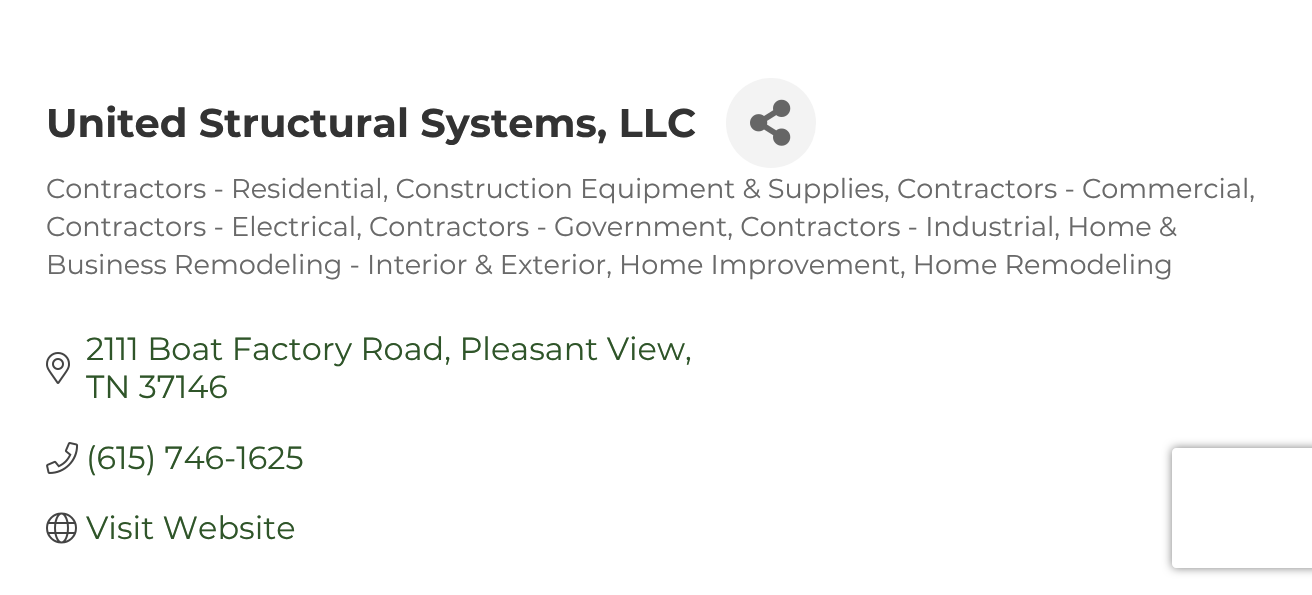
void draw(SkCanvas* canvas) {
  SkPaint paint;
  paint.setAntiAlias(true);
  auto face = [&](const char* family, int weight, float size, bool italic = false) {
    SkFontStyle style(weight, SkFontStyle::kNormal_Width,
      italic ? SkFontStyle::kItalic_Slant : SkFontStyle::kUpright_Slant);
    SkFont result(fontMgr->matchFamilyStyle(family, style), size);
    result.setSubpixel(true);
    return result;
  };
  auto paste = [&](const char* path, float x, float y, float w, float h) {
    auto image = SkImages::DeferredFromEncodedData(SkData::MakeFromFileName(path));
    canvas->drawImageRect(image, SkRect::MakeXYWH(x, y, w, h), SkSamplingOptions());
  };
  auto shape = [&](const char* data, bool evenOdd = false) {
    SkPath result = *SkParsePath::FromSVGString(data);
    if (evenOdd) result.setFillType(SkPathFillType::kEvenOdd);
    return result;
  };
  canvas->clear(0xffffffff);
  paint.setColor(0xfff3f3f3);
  canvas->drawCircle(771, 123, 45, paint);
  paste("img/1.png", 750, 99, 41, 47);
  paste("img/2.png", 46, 352, 24, 32);
  paste("img/3.png", 46, 442, 33, 32);
  paste("img/4.png", 46, 512, 31, 32);
  canvas->save();
  canvas->clipPath(shape("M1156 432H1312V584H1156ZM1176 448H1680C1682 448 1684 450 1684 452V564C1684 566 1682 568 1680 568H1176C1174 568 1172 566 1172 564V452C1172 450 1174 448 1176 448Z", true), true);
  paint.setColor(0xff808080);
  paint.setMaskFilter(SkMaskFilter::MakeBlur(kNormal_SkBlurStyle, 5));
  canvas->drawRoundRect(SkRect::MakeXYWH(1172, 448, 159, 120), 4, 4, paint);
  paint.setMaskFilter(nullptr);
  canvas->restore();
  auto f0 = face("Montserrat", 700, 40);
  paint.setColor(0xff333333);
  canvas->drawString("United Structural Systems, LLC", 46, 137, f0, paint);
  auto f1 = face("Montserrat", 400, 27.2f);
  paint.setColor(0xff696969);
  {
    const struct { const char* s; float x, y; } items[] = {
      {"Contractors - Residential, Construction Equipment & Supplies, Contractors - Commercial,", 46, 198},
      {"Contractors - Electrical, Contractors - Government, Contractors - Industrial, Home &", 46, 236},
      {"Business Remodeling - Interior & Exterior, Home Improvement, Home Remodeling", 46, 274},
    };
    for (auto [s, x, y] : items) {
      canvas->drawString(s, x, y, f1, paint);
    }
  }
  auto f2 = face("Montserrat", 400, 32);
  paint.setColor(0xff2f5529);
  {
    const struct { const char* s; float x, y; } items[] = {
      {"2111 Boat Factory Road, Pleasant View,", 86, 360},
      {"TN 37146", 86, 398},
      {"(615) 746-1625", 86, 469},
      {"Visit Website", 86, 539},
    };
    for (auto [s, x, y] : items) {
      canvas->drawString(s, x, y, f2, paint);
    }
  }
}
